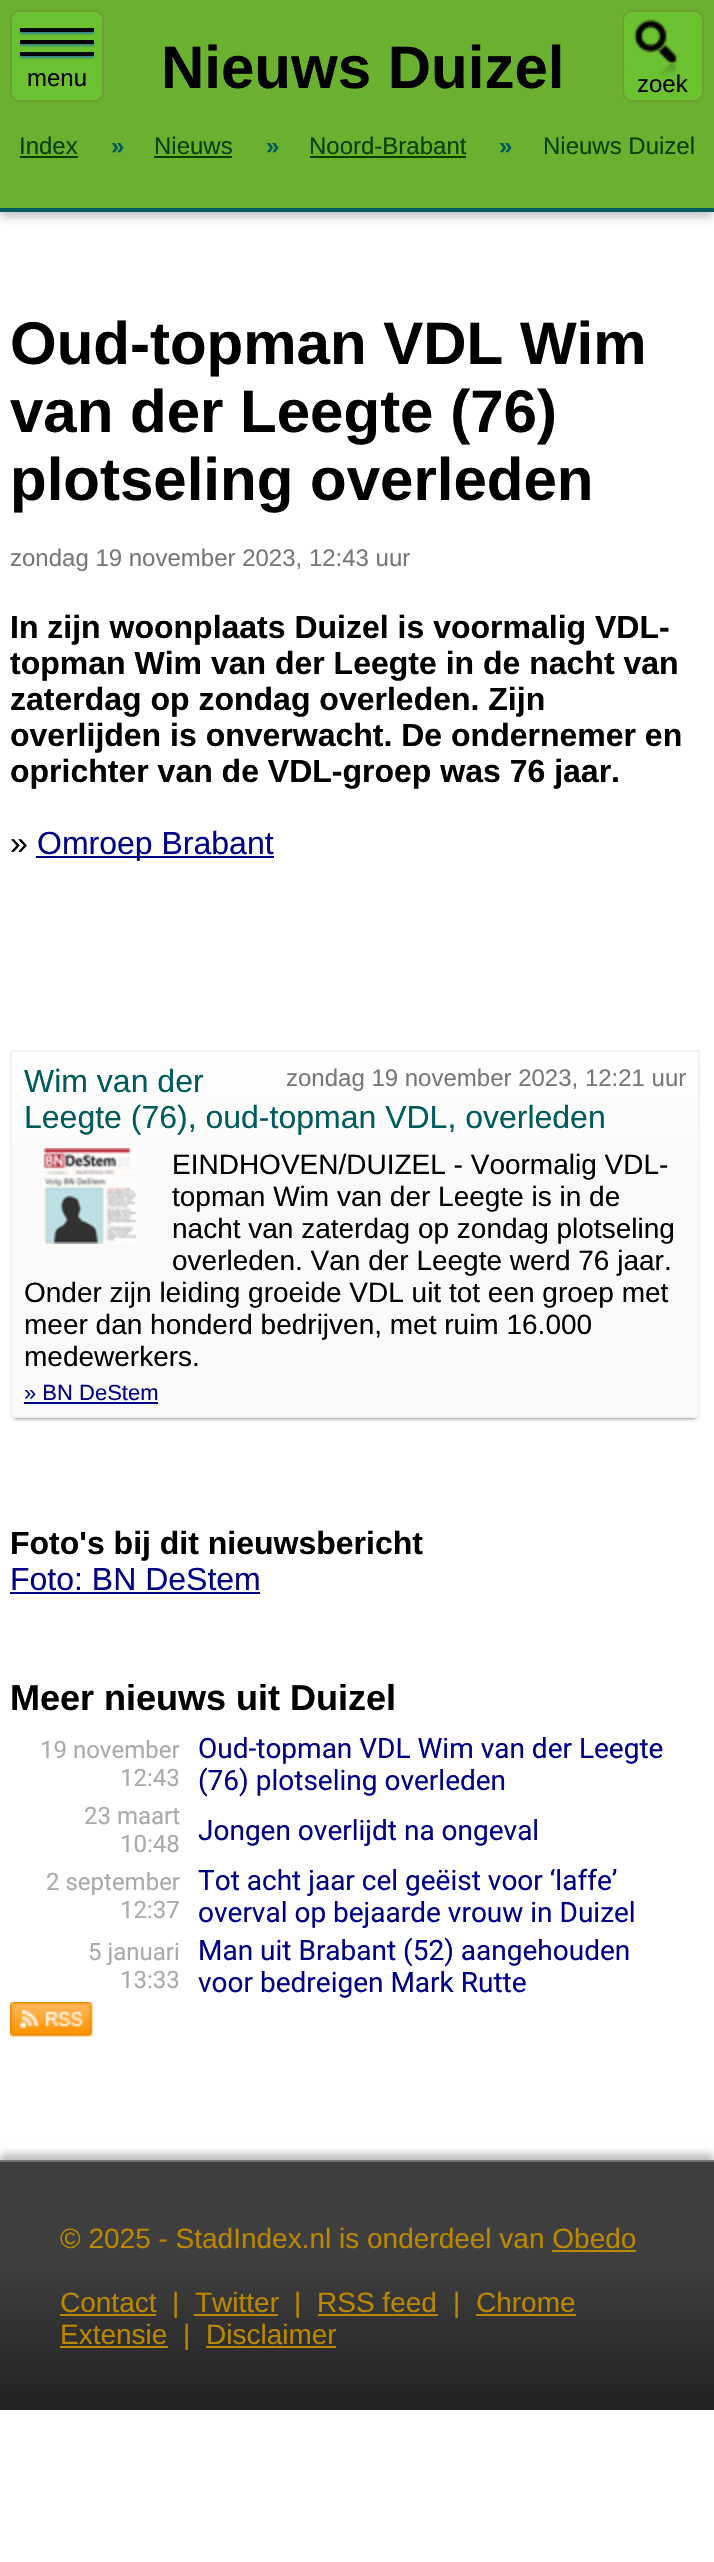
void draw(SkCanvas* canvas) {
  SkPaint paint;
  paint.setAntiAlias(true);
  auto face = [&](const char* family, int weight, float size, bool italic = false) {
    SkFontStyle style(weight, SkFontStyle::kNormal_Width,
      italic ? SkFontStyle::kItalic_Slant : SkFontStyle::kUpright_Slant);
    SkFont result(fontMgr->matchFamilyStyle(family, style), size);
    result.setSubpixel(true);
    return result;
  };
  auto paste = [&](const char* path, float x, float y, float w, float h) {
    auto image = SkImages::DeferredFromEncodedData(SkData::MakeFromFileName(path));
    canvas->drawImageRect(image, SkRect::MakeXYWH(x, y, w, h), SkSamplingOptions());
  };
  canvas->clear(0xffffffff);
  paint.setColor(0xffbbbbbb);
  paint.setMaskFilter(SkMaskFilter::MakeBlur(kNormal_SkBlurStyle, 5));
  canvas->drawRect(SkRect::MakeXYWH(0, 4, 714, 212), paint);
  paint.setMaskFilter(nullptr);
  {
    const struct { float x, y, w, h; SkColor color; } items[] = {
      {0, 0, 714, 208, 0xff6bb130},
      {0, 208, 714, 4, 0xff005b5b},
      {20, 156, 58, 2, 0xff004400},
      {154, 156, 78, 2, 0xff004400},
      {310, 156, 156, 2, 0xff004400},
    };
    for (auto [x, y, w, h, color] : items) {
      paint.setColor(color);
      canvas->drawRect(SkRect::MakeXYWH(x, y, w, h), paint);
    }
  }
  paint.setColor(0xff6bc130);
  canvas->drawRoundRect(SkRect::MakeXYWH(11, 11, 92, 90), 9, 9, paint);
  paint.setStroke(true);
  paint.setStrokeWidth(2);
  paint.setColor(0xff6ba130);
  canvas->drawRoundRect(SkRect::MakeXYWH(11, 11, 92, 90), 9, 9, paint);
  paint.setStroke(false);
  paint.setColor(0xff338888);
  paint.setMaskFilter(SkMaskFilter::MakeBlur(kNormal_SkBlurStyle, 1));
  canvas->drawRect(SkRect::MakeXYWH(20, 30, 74, 4), paint);
  paint.setMaskFilter(nullptr);
  paint.setColor(0xff000000);
  canvas->drawRect(SkRect::MakeXYWH(20, 28, 74, 4), paint);
  paint.setColor(0xff338888);
  paint.setMaskFilter(SkMaskFilter::MakeBlur(kNormal_SkBlurStyle, 1));
  canvas->drawRect(SkRect::MakeXYWH(20, 42, 74, 4), paint);
  paint.setMaskFilter(nullptr);
  paint.setColor(0xff000000);
  canvas->drawRect(SkRect::MakeXYWH(20, 40, 74, 4), paint);
  paint.setColor(0xff338888);
  paint.setMaskFilter(SkMaskFilter::MakeBlur(kNormal_SkBlurStyle, 1));
  canvas->drawRect(SkRect::MakeXYWH(20, 54, 74, 4), paint);
  paint.setMaskFilter(nullptr);
  paint.setColor(0xff000000);
  canvas->drawRect(SkRect::MakeXYWH(20, 52, 74, 4), paint);
  paint.setColor(0xff6bc130);
  canvas->drawRoundRect(SkRect::MakeXYWH(622, 10, 82, 92), 10, 10, paint);
  paste("img/1.png", 624, 19, 54, 57);
  paint.setStroke(true);
  paint.setColor(0xff6ba130);
  canvas->drawRoundRect(SkRect::MakeXYWH(623, 11, 80, 90), 9, 9, paint);
  paint.setStroke(false);
  paint.setColor(0xff000088);
  canvas->drawRect(SkRect::MakeXYWH(36, 856, 238, 2), paint);
  paint.setColor(0xff555555);
  paint.setMaskFilter(SkMaskFilter::MakeBlur(kNormal_SkBlurStyle, 2));
  canvas->drawRect(SkRect::MakeXYWH(14, 1058, 682, 360), paint);
  paint.setMaskFilter(nullptr);
  {
    const SkColor colors[] = {0xffffffff, 0xfff9f9f9};
    const float stops[] = {0, 0.33f};
    const SkPoint ends[] = {{355, 1052}, {355, 1416}};
    paint.setShader(SkGradientShader::MakeLinear(ends, colors, stops, 2, SkTileMode::kClamp));
    paint.setAlpha(255);
  }
  canvas->drawRect(SkRect::MakeXYWH(12, 1054, 686, 362), paint);
  paint.setStroke(true);
  paint.setShader(nullptr);
  paint.setColor(0xfff1f1f1);
  canvas->drawRect(SkRect::MakeXYWH(11, 1051, 688, 366), paint);
  paste("img/2.png", 42, 1148, 94, 96);
  paint.setStroke(false);
  paint.setColor(0xff000088);
  canvas->drawRect(SkRect::MakeXYWH(24, 1402, 134, 2), paint);
  canvas->drawRect(SkRect::MakeXYWH(10, 1592, 250, 2), paint);
  paste("img/3.png", 10, 2002, 84, 36);
  paint.setColor(0xffbbbbbb);
  paint.setMaskFilter(SkMaskFilter::MakeBlur(kNormal_SkBlurStyle, 4));
  canvas->drawRect(SkRect::MakeXYWH(0, 2154, 714, 250), paint);
  paint.setMaskFilter(nullptr);
  {
    const SkColor colors[] = {0xff3f3f3f, 0xff222222};
    const float stops[] = {0.4f, 1};
    const SkPoint ends[] = {{357, 2162}, {357, 2410}};
    paint.setShader(SkGradientShader::MakeLinear(ends, colors, stops, 2, SkTileMode::kClamp));
    paint.setAlpha(255);
  }
  canvas->drawRect(SkRect::MakeXYWH(0, 2162, 714, 248), paint);
  paint.setShader(nullptr);
  {
    const struct { float x, y, w, h; SkColor color; } items[] = {
      {0, 2160, 714, 2, 0xff777777},
      {552, 2250, 84, 2, 0xffbb8800},
      {60, 2314, 96, 2, 0xffbb8800},
      {194, 2314, 84, 2, 0xffbb8800},
      {318, 2314, 120, 2, 0xffbb8800},
      {476, 2314, 100, 2, 0xffbb8800},
      {60, 2346, 108, 2, 0xffbb8800},
      {206, 2346, 130, 2, 0xffbb8800},
    };
    for (auto [x, y, w, h, color] : items) {
      paint.setColor(color);
      canvas->drawRect(SkRect::MakeXYWH(x, y, w, h), paint);
    }
  }
  auto f0 = face("Liberation Sans", 700, 60);
  paint.setColor(0xff000000);
  canvas->drawString("Nieuws Duizel", 161, 88, f0, paint);
  auto f1 = face("Liberation Sans", 400, 24);
  paint.setColor(0xff004400);
  canvas->drawString("Index", 19, 154, f1, paint);
  auto f2 = face("Liberation Sans", 700, 24);
  paint.setColor(0xff005b5b);
  canvas->drawString("»", 111, 154, f2, paint);
  paint.setColor(0xff004400);
  canvas->drawString("Nieuws", 154, 154, f1, paint);
  paint.setColor(0xff005b5b);
  canvas->drawString("»", 266, 154, f2, paint);
  paint.setColor(0xff004400);
  canvas->drawString("Noord-Brabant", 309, 154, f1, paint);
  paint.setColor(0xff005b5b);
  canvas->drawString("»", 499, 154, f2, paint);
  paint.setColor(0xff004400);
  canvas->drawString("Nieuws Duizel", 543, 154, f1, paint);
  paint.setColor(0xff000000);
  canvas->drawString("menu", 27, 86, f1, paint);
  canvas->drawString("zoek", 637, 92, f1, paint);
  {
    const struct { const char* s; float x, y; } items[] = {
      {"Oud-topman VDL Wim", 10, 364},
      {"van der Leegte (76)", 10, 432},
      {"plotseling overleden", 10, 500},
    };
    for (auto [s, x, y] : items) {
      canvas->drawString(s, x, y, f0, paint);
    }
  }
  paint.setColor(0xff777777);
  canvas->drawString("zondag 19 november 2023, 12:43 uur", 10, 566, f1, paint);
  auto f3 = face("Liberation Sans", 700, 32);
  paint.setColor(0xff000000);
  {
    const struct { const char* s; float x, y; } items[] = {
      {"In zijn woonplaats Duizel is voormalig VDL-", 10, 638},
      {"topman Wim van der Leegte in de nacht van", 10, 674},
      {"zaterdag op zondag overleden. Zijn", 10, 710},
      {"overlijden is onverwacht. De ondernemer en", 10, 746},
      {"oprichter van de VDL-groep was 76 jaar.", 10, 782},
    };
    for (auto [s, x, y] : items) {
      canvas->drawString(s, x, y, f3, paint);
    }
  }
  auto f4 = face("Liberation Sans", 400, 32);
  canvas->drawString("»", 10, 854, f4, paint);
  paint.setColor(0xff000088);
  canvas->drawString("Omroep Brabant", 37, 854, f4, paint);
  paint.setColor(0xff005b5b);
  canvas->drawString("Wim van der", 24, 1092, f4, paint);
  canvas->drawString("Leegte (76), oud-topman VDL, overleden", 24, 1128, f4, paint);
  paint.setColor(0xff777777);
  canvas->drawString("zondag 19 november 2023, 12:21 uur", 286, 1086, f1, paint);
  auto f5 = face("Liberation Sans", 400, 28);
  paint.setColor(0xff000000);
  {
    const struct { const char* s; float x, y; } items[] = {
      {"EINDHOVEN/DUIZEL - Voormalig VDL-", 172, 1174},
      {"topman Wim van der Leegte is in de", 172, 1206},
      {"nacht van zaterdag op zondag plotseling", 172, 1238},
      {"overleden. Van der Leegte werd 76 jaar.", 172, 1270},
      {"Onder zijn leiding groeide VDL uit tot een groep met", 24, 1302},
      {"meer dan honderd bedrijven, met ruim 16.000", 24, 1334},
      {"medewerkers.", 24, 1366},
    };
    for (auto [s, x, y] : items) {
      canvas->drawString(s, x, y, f5, paint);
    }
  }
  auto f6 = face("Liberation Sans", 400, 22);
  paint.setColor(0xff000088);
  canvas->drawString("» BN DeStem", 24, 1400, f6, paint);
  paint.setColor(0xff000000);
  canvas->drawString("Foto's bij dit nieuwsbericht", 10, 1554, f3, paint);
  paint.setColor(0xff000088);
  canvas->drawString("Foto: BN DeStem", 10, 1590, f4, paint);
  auto f7 = face("Liberation Sans", 700, 36);
  paint.setColor(0xff000000);
  canvas->drawString("Meer nieuws uit Duizel", 10, 1710, f7, paint);
  auto f8 = face("Roboto", 400, 24);
  paint.setColor(0xffaaaaaa);
  canvas->drawString("19 november", 40, 1758, f8, paint);
  canvas->drawString("12:43", 120, 1786, f8, paint);
  auto f9 = face("Roboto", 400, 28);
  paint.setColor(0xff000088);
  canvas->drawString("Oud-topman VDL Wim van der Leegte", 198, 1758, f9, paint);
  canvas->drawString("(76) plotseling overleden", 198, 1790, f9, paint);
  paint.setColor(0xffaaaaaa);
  canvas->drawString("23 maart", 84, 1824, f8, paint);
  canvas->drawString("10:48", 120, 1852, f8, paint);
  paint.setColor(0xff000088);
  canvas->drawString("Jongen overlijdt na ongeval", 198, 1840, f9, paint);
  paint.setColor(0xffaaaaaa);
  canvas->drawString("2 september", 46, 1890, f8, paint);
  canvas->drawString("12:37", 120, 1918, f8, paint);
  paint.setColor(0xff000088);
  canvas->drawString("Tot acht jaar cel geëist voor ‘laffe’", 198, 1890, f9, paint);
  canvas->drawString("overval op bejaarde vrouw in Duizel", 198, 1922, f9, paint);
  paint.setColor(0xffaaaaaa);
  canvas->drawString("5 januari", 88, 1960, f8, paint);
  canvas->drawString("13:33", 120, 1988, f8, paint);
  paint.setColor(0xff000088);
  canvas->drawString("Man uit Brabant (52) aangehouden", 198, 1960, f9, paint);
  canvas->drawString("voor bedreigen Mark Rutte", 198, 1992, f9, paint);
  paint.setColor(0xffbb8800);
  {
    const struct { const char* s; float x, y; } items[] = {
      {"© 2025 - StadIndex.nl is onderdeel van Obedo", 60, 2248},
      {"Contact", 60, 2312},
      {"|", 172, 2312},
      {"Twitter", 195, 2312},
      {"|", 294, 2312},
      {"RSS feed", 317, 2312},
      {"|", 453, 2312},
      {"Chrome", 476, 2312},
      {"Extensie", 60, 2344},
      {"|", 183, 2344},
      {"Disclaimer", 206, 2344},
    };
    for (auto [s, x, y] : items) {
      canvas->drawString(s, x, y, f5, paint);
    }
  }
}
